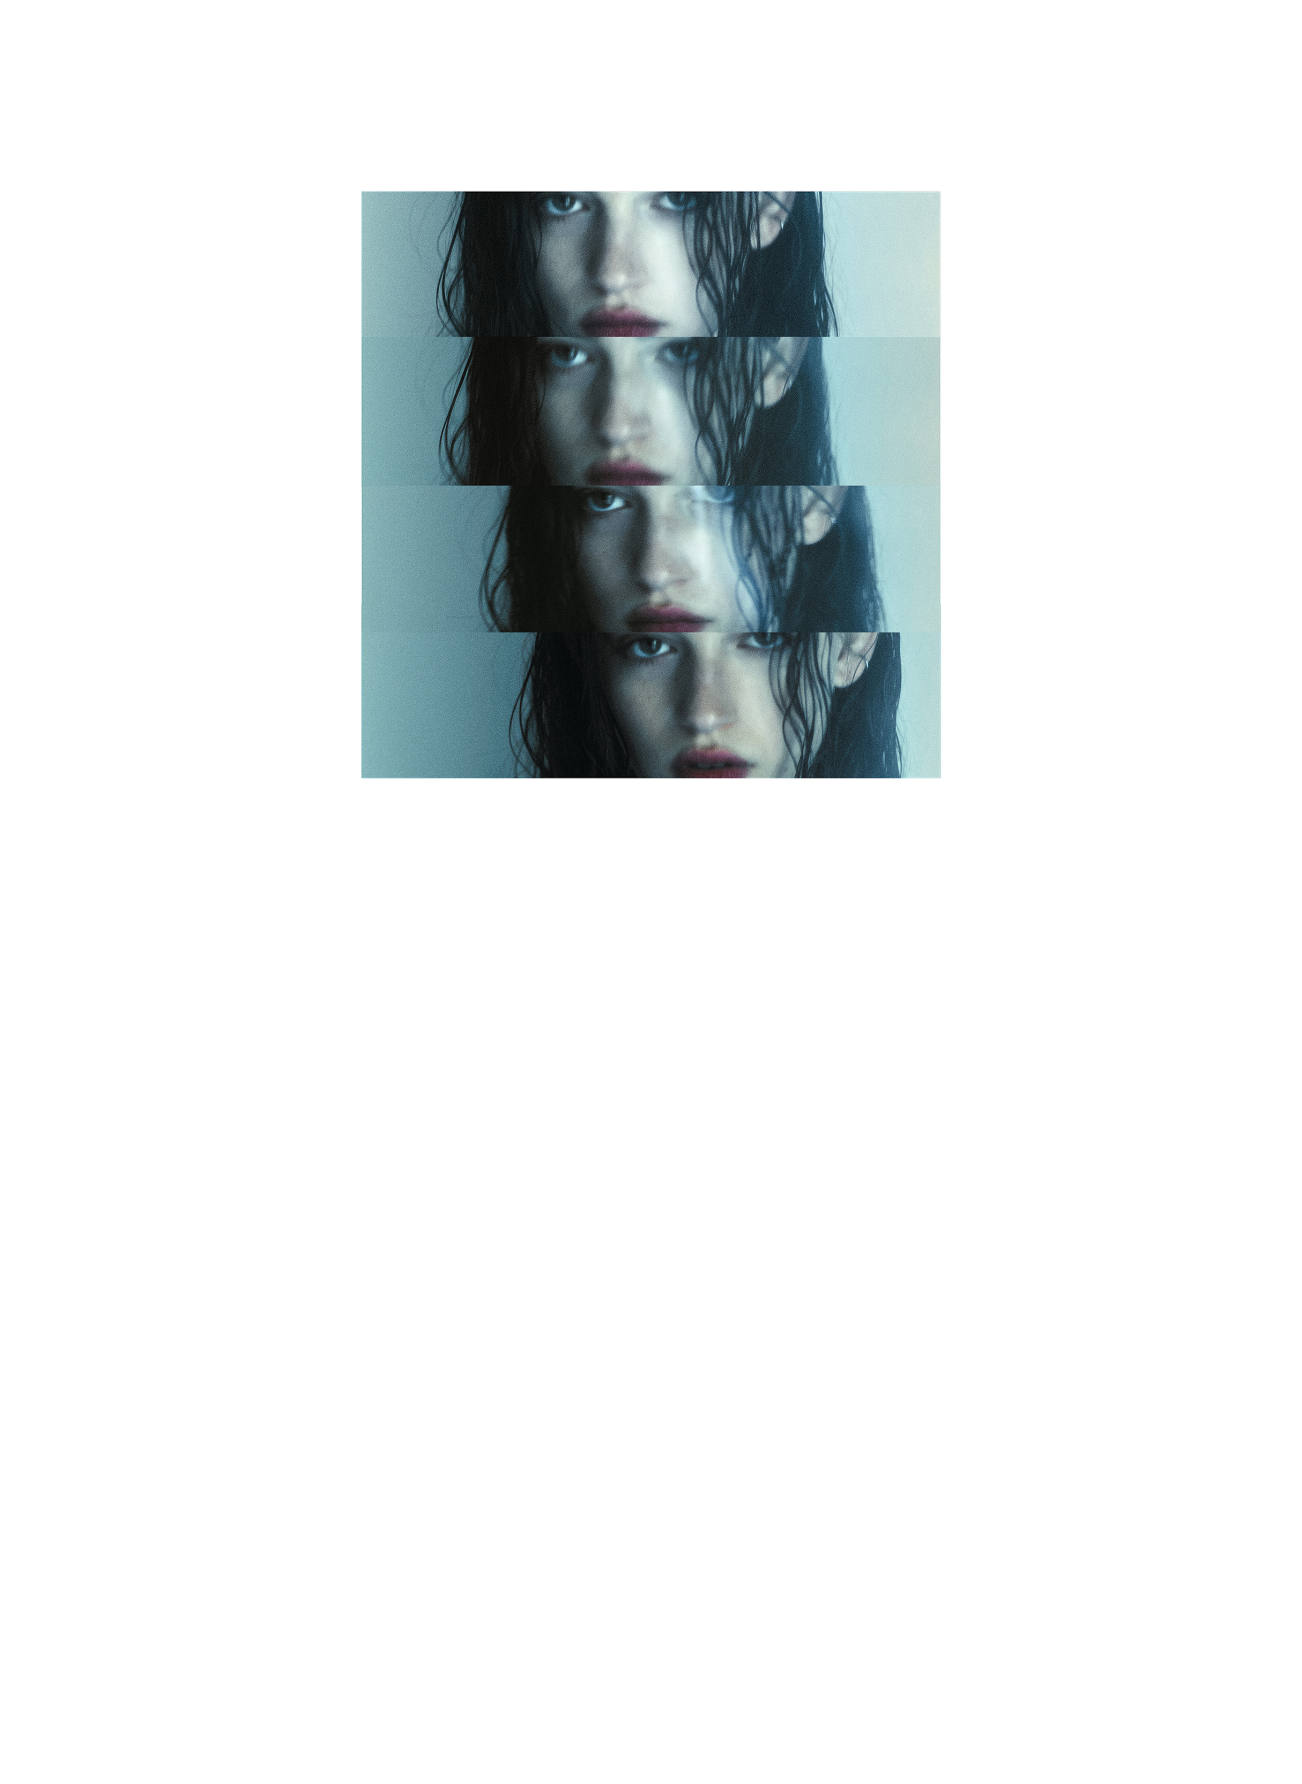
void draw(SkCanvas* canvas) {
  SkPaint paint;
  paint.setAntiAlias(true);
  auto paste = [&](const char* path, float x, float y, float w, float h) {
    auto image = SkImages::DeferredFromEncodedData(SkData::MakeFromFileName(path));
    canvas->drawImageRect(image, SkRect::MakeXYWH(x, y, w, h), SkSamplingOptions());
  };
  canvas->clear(0xffffffff);
  paste("img/1.png", 361, 190, 581, 589);
}
